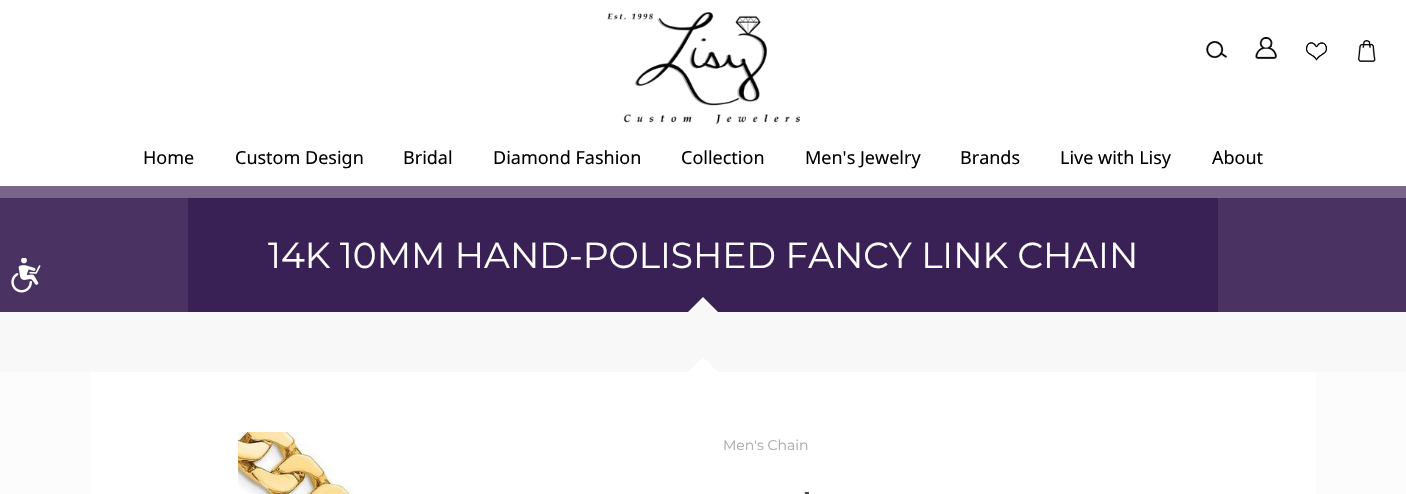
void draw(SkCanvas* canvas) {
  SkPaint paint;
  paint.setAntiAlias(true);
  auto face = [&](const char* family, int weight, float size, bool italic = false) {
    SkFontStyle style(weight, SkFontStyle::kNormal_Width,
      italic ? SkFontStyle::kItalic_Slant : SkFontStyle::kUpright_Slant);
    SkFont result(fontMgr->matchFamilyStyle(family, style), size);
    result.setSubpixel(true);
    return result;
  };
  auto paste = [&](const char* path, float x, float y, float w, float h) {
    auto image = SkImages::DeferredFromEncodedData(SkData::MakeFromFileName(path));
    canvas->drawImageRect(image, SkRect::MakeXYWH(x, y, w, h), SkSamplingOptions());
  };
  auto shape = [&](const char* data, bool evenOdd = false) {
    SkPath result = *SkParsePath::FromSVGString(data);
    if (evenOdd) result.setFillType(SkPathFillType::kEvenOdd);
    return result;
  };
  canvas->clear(0xfff8f8f8);
  paint.setColor(0xff4a3363);
  canvas->drawRect(SkRect::MakeXYWH(0, 198, 1406, 114), paint);
  paste("img/1.png", 11, 258, 30, 35);
  paint.setColor(0xffffffff);
  canvas->drawRect(SkRect::MakeXYWH(0, 0, 1406, 186), paint);
  paste("img/2.png", 607, 12, 193, 112);
  paste("img/3.png", 1206, 41, 21, 17);
  paste("img/4.png", 1255, 37, 22, 22);
  paste("img/5.png", 1306, 42, 21, 19);
  paste("img/6.png", 1358, 40, 18, 22);
  paint.setColor(0xff77668a);
  canvas->drawRect(SkRect::MakeXYWH(0, 186, 1406, 12), paint);
  paint.setColor(0xff3a2155);
  canvas->drawRect(SkRect::MakeXYWH(188, 198, 1030, 114), paint);
  paint.setColor(0xfff8f8f8);
  canvas->drawPath(shape("M718 312H688L703 297Z"), paint);
  paint.setColor(0xffffffff);
  canvas->drawPath(shape("M718 372H688L703 357Z"), paint);
  canvas->drawRect(SkRect::MakeXYWH(90, 372, 1226, 122), paint);
  paint.setColor(0xfffcfcfc);
  canvas->drawRect(SkRect::MakeXYWH(0, 372, 90, 122), paint);
  paste("img/7.png", 238, 432, 116, 62);
  canvas->drawRect(SkRect::MakeXYWH(1316, 372, 90, 122), paint);
  auto f0 = face("Noto Sans", 400, 18);
  paint.setColor(0xff000000);
  {
    const struct { const char* s; float x, y; } items[] = {
      {"Home", 143, 164},
      {"Custom Design", 235, 164},
      {"Bridal", 403, 164},
      {"Diamond Fashion", 493, 164},
      {"Collection", 681, 164},
      {"Men's Jewelry", 805, 164},
      {"Brands", 960, 164},
      {"Live with Lisy", 1060, 164},
      {"About", 1212, 164},
    };
    for (auto [s, x, y] : items) {
      canvas->drawString(s, x, y, f0, paint);
    }
  }
  auto f1 = face("Montserrat", 100, 36);
  paint.setColor(0xffffffff);
  canvas->drawString("14K 10MM HAND-POLISHED FANCY LINK CHAIN", 268, 268, f1, paint);
  auto f2 = face("Montserrat", 100, 14);
  paint.setColor(0xffaaaaaa);
  canvas->drawString("Men's Chain", 723, 450, f2, paint);
  auto f3 = face("Montserrat", 700, 14);
  paint.setColor(0xff000000);
  canvas->drawString("-", 804, 497, f3, paint);
}
